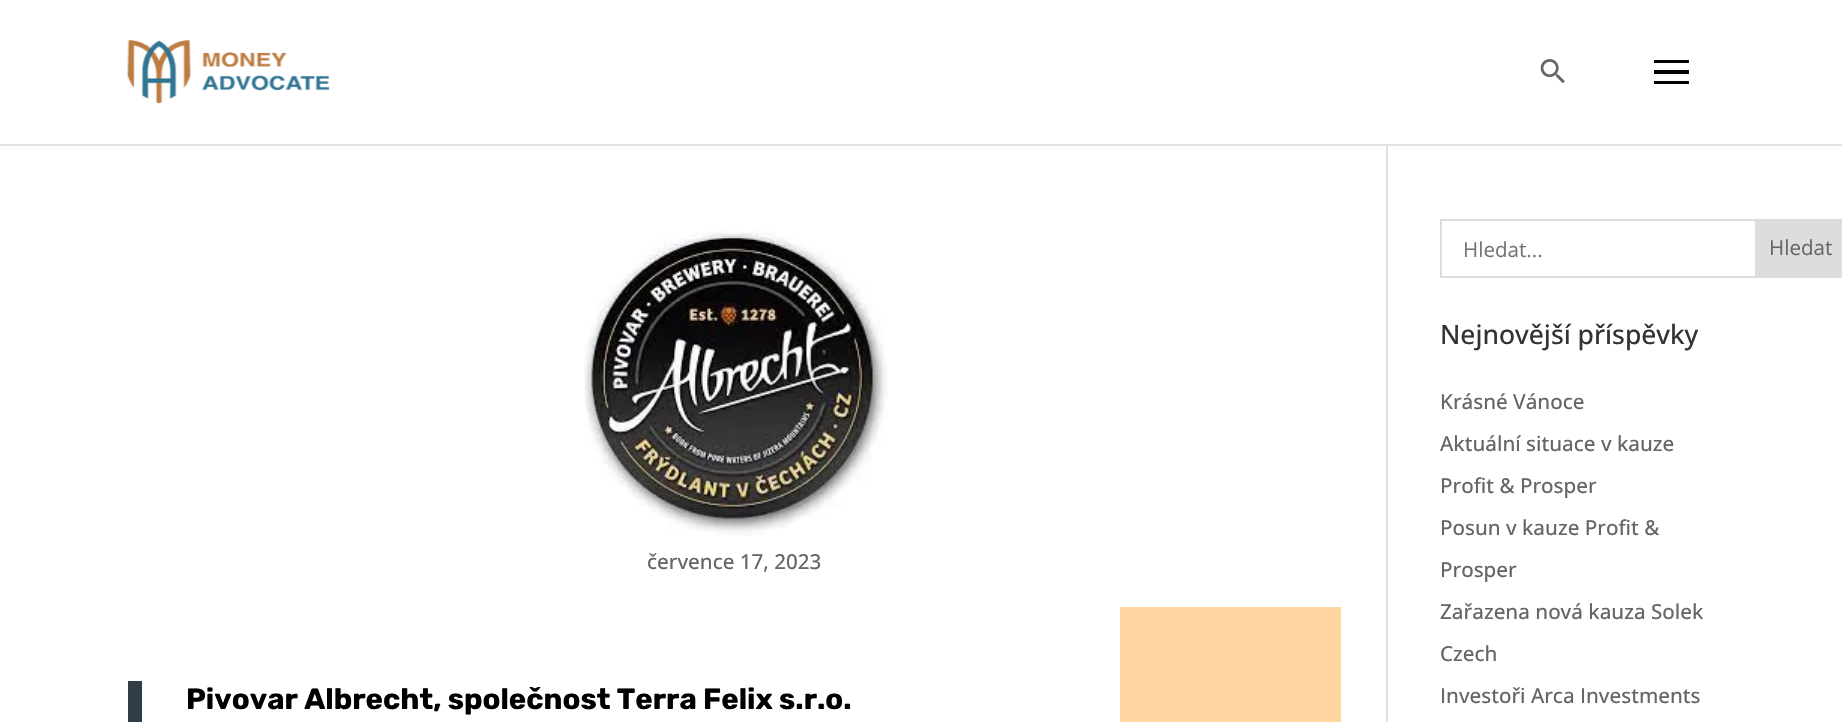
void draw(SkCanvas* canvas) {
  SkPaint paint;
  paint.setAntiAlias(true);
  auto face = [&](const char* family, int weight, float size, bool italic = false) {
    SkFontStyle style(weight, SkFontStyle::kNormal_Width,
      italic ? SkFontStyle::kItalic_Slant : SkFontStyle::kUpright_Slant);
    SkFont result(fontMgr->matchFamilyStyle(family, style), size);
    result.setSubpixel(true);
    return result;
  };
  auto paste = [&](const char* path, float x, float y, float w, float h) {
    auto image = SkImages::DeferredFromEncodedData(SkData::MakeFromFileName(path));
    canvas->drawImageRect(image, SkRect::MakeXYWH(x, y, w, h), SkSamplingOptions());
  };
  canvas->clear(0xffffffff);
  paint.setColor(0xffe2e2e2);
  canvas->drawRect(SkRect::MakeXYWH(1386, 145, 2, 577), paint);
  canvas->drawRect(SkRect::MakeXYWH(0, 144, 1842, 2), paint);
  paste("img/1.png", 127, 40, 202, 64);
  paste("img/2.png", 1540, 59, 25, 25);
  {
    const struct { float x, y, w, h; SkColor color; } items[] = {
      {1654, 70, 35, 4, 0xff000000},
      {1654, 60, 35, 3, 0xff000000},
      {1654, 81, 35, 3, 0xff000000},
    };
    for (auto [x, y, w, h, color] : items) {
      paint.setColor(color);
      canvas->drawRect(SkRect::MakeXYWH(x, y, w, h), paint);
    }
  }
  paste("img/3.png", 584, 231, 304, 305);
  paint.setColor(0xff313e47);
  canvas->drawRect(SkRect::MakeXYWH(128, 681, 14, 41), paint);
  paint.setColor(0xffffd6a0);
  canvas->drawRect(SkRect::MakeXYWH(1120, 607, 221, 115), paint);
  paint.setStroke(true);
  paint.setStrokeWidth(2);
  paint.setColor(0xffdddddd);
  canvas->drawRect(SkRect::MakeXYWH(1441, 220, 315, 57), paint);
  paint.setStroke(false);
  canvas->drawRect(SkRect::MakeXYWH(1757, 219, 85, 59), paint);
  auto f0 = face("Open Sans", 500, 20.6f);
  paint.setColor(0xff666666);
  canvas->drawString("července 17, 2023", 647, 569, f0, paint);
  auto f1 = face("Rubik", 300, 29.4f);
  paint.setColor(0xff000000);
  canvas->drawString("Pivovar Albrecht, společnost Terra Felix s.r.o.", 186, 709, f1, paint);
  auto f2 = face("Open Sans", 400, 20.6f);
  paint.setColor(0xff757575);
  canvas->drawString("Hledat...", 1463, 257, f2, paint);
  paint.setColor(0xff666666);
  canvas->drawString("Hledat", 1769, 255, f2, paint);
  auto f3 = face("Open Sans", 500, 26.5f);
  paint.setColor(0xff333333);
  canvas->drawString("Nejnovější příspěvky", 1440, 344, f3, paint);
  paint.setColor(0xff666666);
  {
    const struct { const char* s; float x, y; } items[] = {
      {"Krásné Vánoce", 1440, 409},
      {"Aktuální situace v kauze", 1440, 451},
      {"Profit & Prosper", 1440, 493},
      {"Posun v kauze Profit &", 1440, 535},
      {"Prosper", 1440, 577},
      {"Zařazena nová kauza Solek", 1440, 619},
      {"Czech", 1440, 661},
      {"Investoři Arca Investments", 1440, 703},
    };
    for (auto [s, x, y] : items) {
      canvas->drawString(s, x, y, f0, paint);
    }
  }
}
